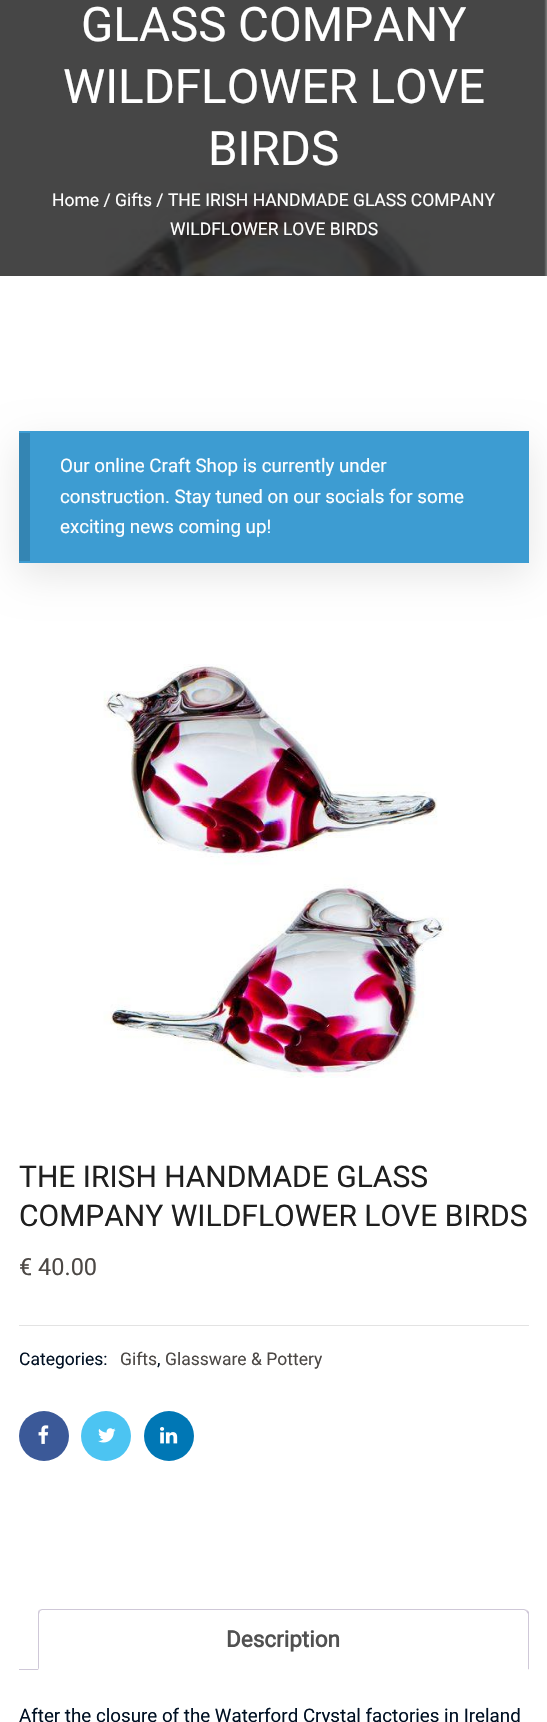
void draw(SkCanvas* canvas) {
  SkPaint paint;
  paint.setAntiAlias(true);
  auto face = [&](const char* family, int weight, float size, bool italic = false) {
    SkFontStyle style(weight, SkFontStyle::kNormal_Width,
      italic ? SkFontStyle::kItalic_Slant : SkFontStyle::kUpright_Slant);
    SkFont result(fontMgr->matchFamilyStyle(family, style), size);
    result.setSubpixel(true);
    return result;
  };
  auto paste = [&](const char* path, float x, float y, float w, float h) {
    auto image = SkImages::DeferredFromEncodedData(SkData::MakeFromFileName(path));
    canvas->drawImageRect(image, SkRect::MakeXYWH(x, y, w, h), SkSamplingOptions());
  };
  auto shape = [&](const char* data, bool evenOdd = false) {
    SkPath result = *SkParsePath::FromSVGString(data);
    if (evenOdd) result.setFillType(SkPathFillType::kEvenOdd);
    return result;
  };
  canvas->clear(0xffffffff);
  paste("img/1.png", 0, 0, 547, 276);
  paint.setColor(0xff3d9cd2);
  canvas->drawRect(SkRect::MakeXYWH(19, 431, 510, 132), paint);
  paint.setColor(0x1a000000);
  paint.setMaskFilter(SkMaskFilter::MakeBlur(kNormal_SkBlurStyle, 19));
  canvas->drawRoundRect(SkRect::MakeXYWH(19, 444, 510, 131), 2.5f, 2.5f, paint);
  paint.setMaskFilter(nullptr);
  paint.setColor(0xff3d9cd2);
  canvas->drawRoundRect(SkRect::MakeXYWH(19, 431, 510, 132), 2.5f, 2.5f, paint);
  paint.setColor(0xff3485b3);
  canvas->drawRect(SkRect::MakeXYWH(19, 433, 11, 128), paint);
  paste("img/2.png", 103, 664, 346, 414);
  paint.setColor(0xffe3e3e3);
  canvas->drawRect(SkRect::MakeXYWH(19, 1325, 510, 1), paint);
  paint.setColor(0xff3b5998);
  canvas->drawCircle(44, 1436, 25, paint);
  paste("img/3.png", 38, 1425, 11, 19);
  paint.setColor(0xff4cc4f2);
  canvas->drawCircle(106, 1436, 25, paint);
  paste("img/4.png", 98, 1428, 18, 15);
  paint.setColor(0xff0077b5);
  canvas->drawCircle(169, 1436, 25, paint);
  paste("img/5.png", 160, 1427, 18, 17);
  paint.setColor(0xffcfc8d8);
  canvas->drawPath(shape("M42 1609C41 1609 40 1610 39 1610L40 1611L42 1610H524L526 1611L527 1610L524 1609Z"), paint);
  canvas->drawPath(shape("M527 1610L529 1612V1670L528 1669V1614L526 1611Z"), paint);
  paint.setColor(0xffffffff);
  canvas->drawPath(shape("M529 1670L528 1669H39V1668L38 1670Z"), paint);
  paint.setColor(0xffcfc8d8);
  canvas->drawPath(shape("M39 1610C38 1611 38 1613 38 1614V1670L39 1668V1614L40 1611Z"), paint);
  canvas->drawRect(SkRect::MakeXYWH(19, 1669, 19, 1), paint);
  auto f0 = face("Roboto", 400, 47.5f);
  paint.setColor(0xffffffff);
  {
    const struct { const char* s; float x, y; } items[] = {
      {"GLASS COMPANY", 81, 41},
      {"WILDFLOWER LOVE", 63, 103},
      {"BIRDS", 208, 165},
    };
    for (auto [s, x, y] : items) {
      canvas->drawString(s, x, y, f0, paint);
    }
  }
  auto f1 = face("Roboto", 400, 17.5f);
  canvas->drawString("Home / Gifts / THE IRISH HANDMADE GLASS COMPANY", 52, 206, f1, paint);
  canvas->drawString("WILDFLOWER LOVE BIRDS", 170, 235, f1, paint);
  auto f2 = face("Roboto", 400, 18.75f);
  {
    const struct { const char* s; float x, y; } items[] = {
      {"Our online Craft Shop is currently under", 60, 472},
      {"construction. Stay tuned on our socials for some", 60, 503},
      {"exciting news coming up!", 60, 533},
    };
    for (auto [s, x, y] : items) {
      canvas->drawString(s, x, y, f2, paint);
    }
  }
  auto f3 = face("Roboto", 400, 30);
  paint.setColor(0xff1f1f1f);
  canvas->drawString("THE IRISH HANDMADE GLASS", 19, 1187, f3, paint);
  canvas->drawString("COMPANY WILDFLOWER LOVE BIRDS", 19, 1226, f3, paint);
  auto f4 = face("Roboto", 400, 23.5f);
  paint.setColor(0xff4c4845);
  canvas->drawString("€ 40.00", 19, 1275, f4, paint);
  paint.setColor(0xff001023);
  canvas->drawString("Categories:", 19, 1365, f1, paint);
  paint.setColor(0xff4c4845);
  canvas->drawString("Gifts", 120, 1365, f1, paint);
  paint.setColor(0xff001023);
  canvas->drawString(",", 157, 1365, f1, paint);
  paint.setColor(0xff4c4845);
  canvas->drawString("Glassware & Pottery", 165, 1365, f1, paint);
  auto f5 = face("Roboto", 700, 22.5f);
  paint.setColor(0xff515151);
  canvas->drawString("Description", 226, 1647, f5, paint);
  paint.setColor(0xff001023);
  canvas->drawString("After the closure of the Waterford Crystal factories in Ireland", 19, 1722, f2, paint);
}
